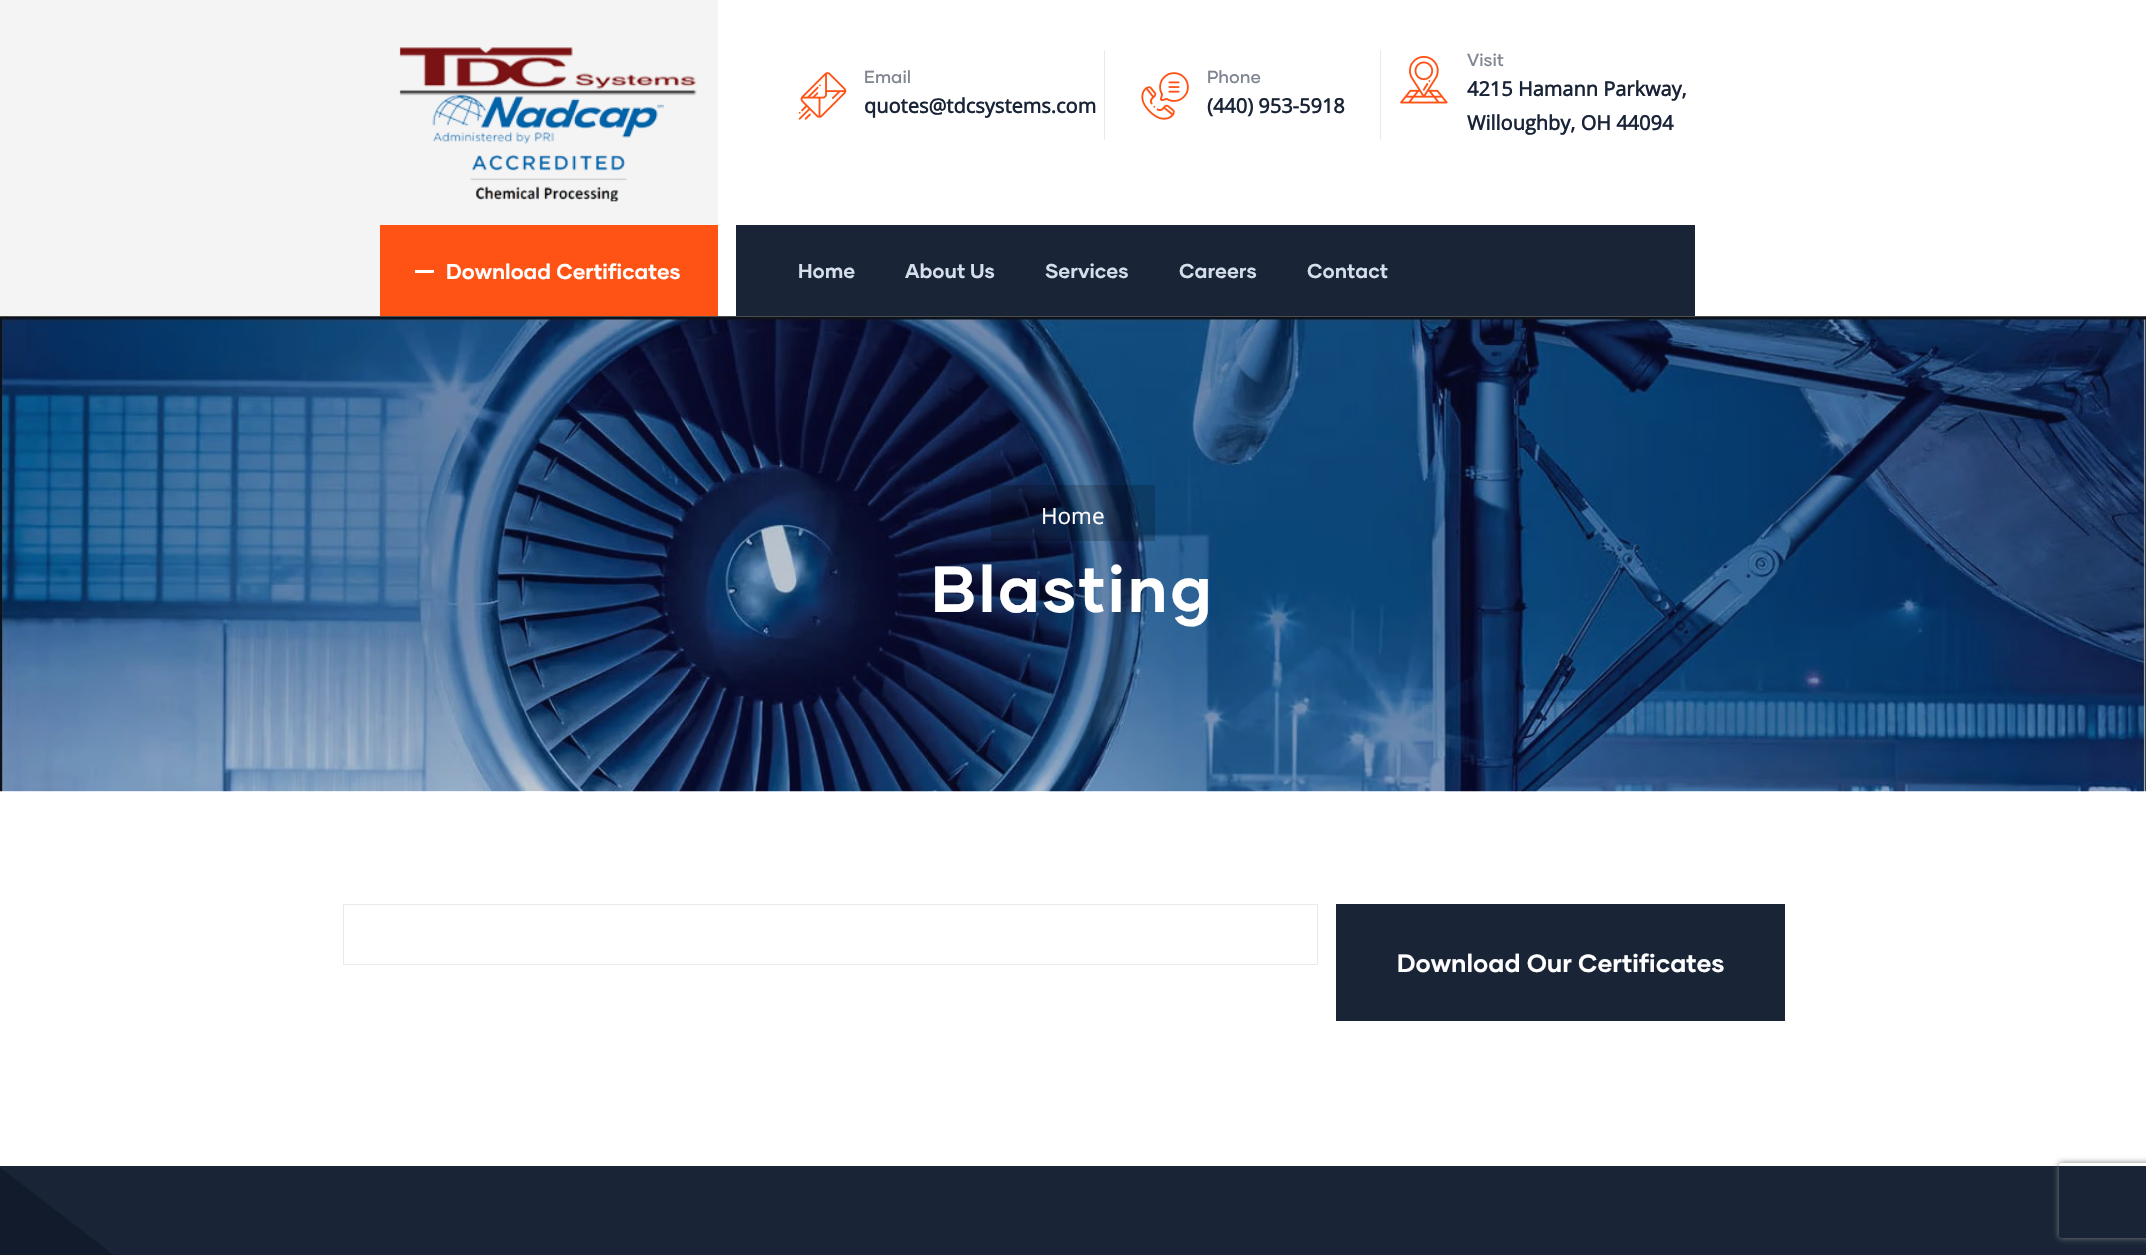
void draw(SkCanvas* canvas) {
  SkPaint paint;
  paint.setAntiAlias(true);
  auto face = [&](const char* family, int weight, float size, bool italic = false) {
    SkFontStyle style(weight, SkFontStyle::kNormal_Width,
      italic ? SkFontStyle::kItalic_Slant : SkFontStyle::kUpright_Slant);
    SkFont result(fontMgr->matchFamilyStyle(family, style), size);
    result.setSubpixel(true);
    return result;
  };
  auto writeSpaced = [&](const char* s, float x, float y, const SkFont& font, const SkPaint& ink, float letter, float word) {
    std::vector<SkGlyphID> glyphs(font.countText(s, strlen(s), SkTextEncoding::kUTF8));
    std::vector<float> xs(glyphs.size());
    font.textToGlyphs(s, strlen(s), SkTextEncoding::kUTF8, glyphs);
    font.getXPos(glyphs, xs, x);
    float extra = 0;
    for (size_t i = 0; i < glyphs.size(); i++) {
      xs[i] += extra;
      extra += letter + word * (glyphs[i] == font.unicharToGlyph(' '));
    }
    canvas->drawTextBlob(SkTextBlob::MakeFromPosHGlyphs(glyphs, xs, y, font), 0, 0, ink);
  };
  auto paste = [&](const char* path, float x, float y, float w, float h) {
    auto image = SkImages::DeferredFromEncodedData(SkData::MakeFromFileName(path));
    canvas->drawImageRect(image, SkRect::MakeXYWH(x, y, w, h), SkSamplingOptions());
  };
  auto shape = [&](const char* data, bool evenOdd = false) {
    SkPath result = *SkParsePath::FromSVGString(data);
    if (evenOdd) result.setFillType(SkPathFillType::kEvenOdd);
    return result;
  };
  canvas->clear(0xffffffff);
  paint.setColor(0xfff4f4f5);
  canvas->drawRect(SkRect::MakeXYWH(0, 0, 718, 225), paint);
  paste("img/1.png", 399, 47, 298, 155);
  paint.setColor(0xffeaeaea);
  canvas->drawRect(SkRect::MakeXYWH(1104, 50, 1, 90), paint);
  paste("img/2.png", 798, 72, 49, 48);
  canvas->drawRect(SkRect::MakeXYWH(1380, 50, 1, 90), paint);
  paste("img/3.png", 1141, 72, 48, 48);
  paste("img/4.png", 1400, 55, 48, 49);
  {
    const struct { float x, y, w, h; SkColor color; } items[] = {
      {0, 225, 380, 91, 0xfff4f4f5},
      {380, 225, 338, 91, 0xffff5316},
      {415, 270, 19, 3, 0xffffffff},
      {736, 225, 959, 91, 0xff192437},
    };
    for (auto [x, y, w, h, color] : items) {
      paint.setColor(color);
      canvas->drawRect(SkRect::MakeXYWH(x, y, w, h), paint);
    }
  }
  paste("img/5.png", 0, 316, 2146, 476);
  paint.setColor(0x33000000);
  canvas->drawRect(SkRect::MakeXYWH(991, 485, 164, 56), paint);
  paint.setStroke(true);
  paint.setStrokeWidth(1);
  paint.setColor(0xffe9e9ee);
  canvas->drawRect(SkRect::MakeXYWH(343.5f, 904.5f, 974, 60), paint);
  paint.setStroke(false);
  paint.setColor(0xff192437);
  canvas->drawRect(SkRect::MakeXYWH(1336, 904, 449, 117), paint);
  canvas->drawRect(SkRect::MakeXYWH(0, 1166, 2146, 89), paint);
  canvas->save();
  canvas->clipPath(shape("M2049 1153H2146V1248H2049ZM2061.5 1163H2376.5C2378 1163 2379 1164 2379 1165.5V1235.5C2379 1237 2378 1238 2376.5 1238H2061.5C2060 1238 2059 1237 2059 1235.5V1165.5C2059 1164 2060 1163 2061.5 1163Z", true), true);
  paint.setColor(0xff808080);
  paint.setMaskFilter(SkMaskFilter::MakeBlur(kNormal_SkBlurStyle, 3));
  canvas->drawRoundRect(SkRect::MakeXYWH(2059, 1163, 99, 75), 2.5f, 2.5f, paint);
  paint.setMaskFilter(nullptr);
  canvas->restore();
  paste("img/6.png", 0, 1167, 114, 88);
  auto f0 = face("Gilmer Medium", 500, 17.5f);
  paint.setColor(0xff7f8692);
  canvas->drawString("Email", 864, 83, f0, paint);
  auto f1 = face("Open Sans", 700, 20);
  paint.setColor(0xff192437);
  canvas->drawString("quotes@tdcsystems.com", 864, 113, f1, paint);
  paint.setColor(0xff7f8692);
  canvas->drawString("Phone", 1207, 83, f0, paint);
  paint.setColor(0xff192437);
  canvas->drawString("(440) 953-5918", 1207, 113, f1, paint);
  paint.setColor(0xff7f8692);
  canvas->drawString("Visit", 1467, 66, f0, paint);
  paint.setColor(0xff192437);
  canvas->drawString("4215 Hamann Parkway,", 1467, 96, f1, paint);
  canvas->drawString("Willoughby, OH 44094", 1467, 130, f1, paint);
  auto f2 = face("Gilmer", 700, 21.25f);
  paint.setColor(0xffffffff);
  canvas->drawString("Download Certificates", 446, 279, f2, paint);
  auto f3 = face("Gilmer", 700, 20);
  paint.setColor(0xffd6deeb);
  {
    const struct { const char* s; float x, y; } items[] = {
      {"Home", 798, 278},
      {"About Us", 905, 278},
      {"Services", 1045, 278},
      {"Careers", 1179, 278},
      {"Contact", 1307, 278},
    };
    for (auto [s, x, y] : items) {
      canvas->drawString(s, x, y, f3, paint);
    }
  }
  auto f4 = face("Open Sans", 400, 22.5f);
  paint.setColor(0xffffffff);
  canvas->drawString("Home", 1041, 524, f4, paint);
  auto f5 = face("Gilmer", 700, 65);
  writeSpaced("Blasting", 931, 612, f5, paint, 2.5f, 0);
  auto f6 = face("Gilmer", 700, 25);
  canvas->drawString("Download Our Certificates", 1397, 972, f6, paint);
}
